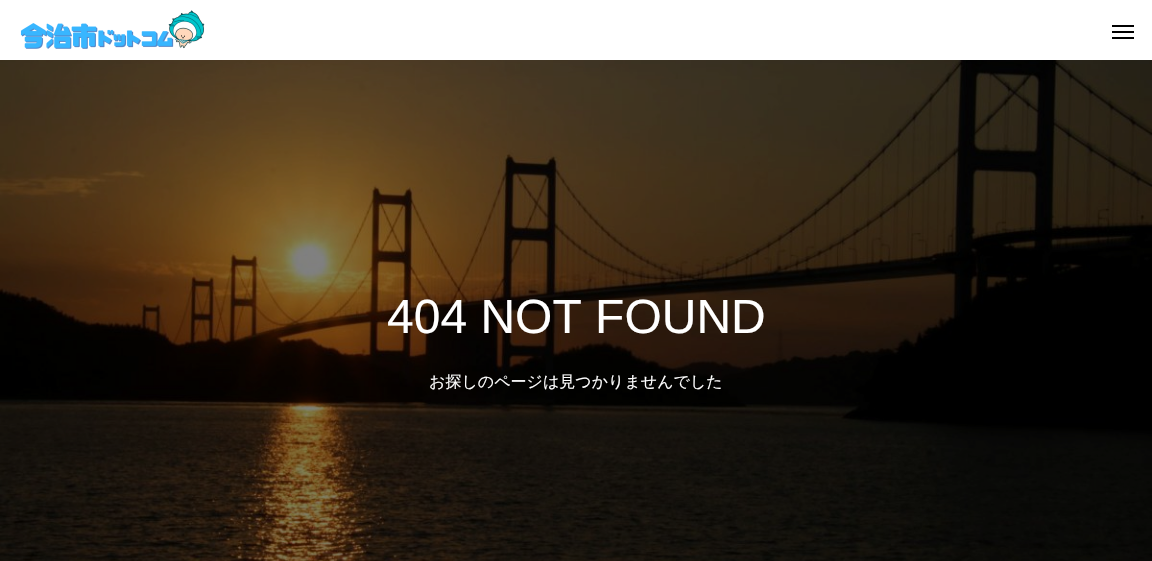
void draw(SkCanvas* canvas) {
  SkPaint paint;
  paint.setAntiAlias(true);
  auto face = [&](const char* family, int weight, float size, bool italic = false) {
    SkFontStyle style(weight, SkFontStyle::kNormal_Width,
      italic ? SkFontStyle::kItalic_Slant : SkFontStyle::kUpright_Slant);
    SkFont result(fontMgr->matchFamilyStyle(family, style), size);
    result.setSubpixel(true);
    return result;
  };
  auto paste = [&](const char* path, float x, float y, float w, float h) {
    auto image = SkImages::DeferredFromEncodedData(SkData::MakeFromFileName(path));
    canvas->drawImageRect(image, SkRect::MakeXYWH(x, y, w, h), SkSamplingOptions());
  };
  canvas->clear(0xffffffff);
  paste("img/1.png", 20, 10, 185, 39);
  {
    const struct { float x, y, w, h; SkColor color; } items[] = {
      {1112, 25, 22, 2, 0xff000000},
      {1112, 31, 22, 2, 0xff000000},
      {1112, 37, 22, 2, 0xff000000},
    };
    for (auto [x, y, w, h, color] : items) {
      paint.setColor(color);
      canvas->drawRect(SkRect::MakeXYWH(x, y, w, h), paint);
    }
  }
  paste("img/2.png", 0, 60, 1152, 501);
  auto f0 = face("Liberation Sans", 400, 48);
  paint.setColor(0xffffffff);
  canvas->drawString("404 NOT FOUND", 387, 333, f0, paint);
  auto f1 = face("WenQuanYi Zen Hei", 500, 16);
  canvas->drawString("お探しのページは見つかりませんでした", 429, 387, f1, paint);
}
